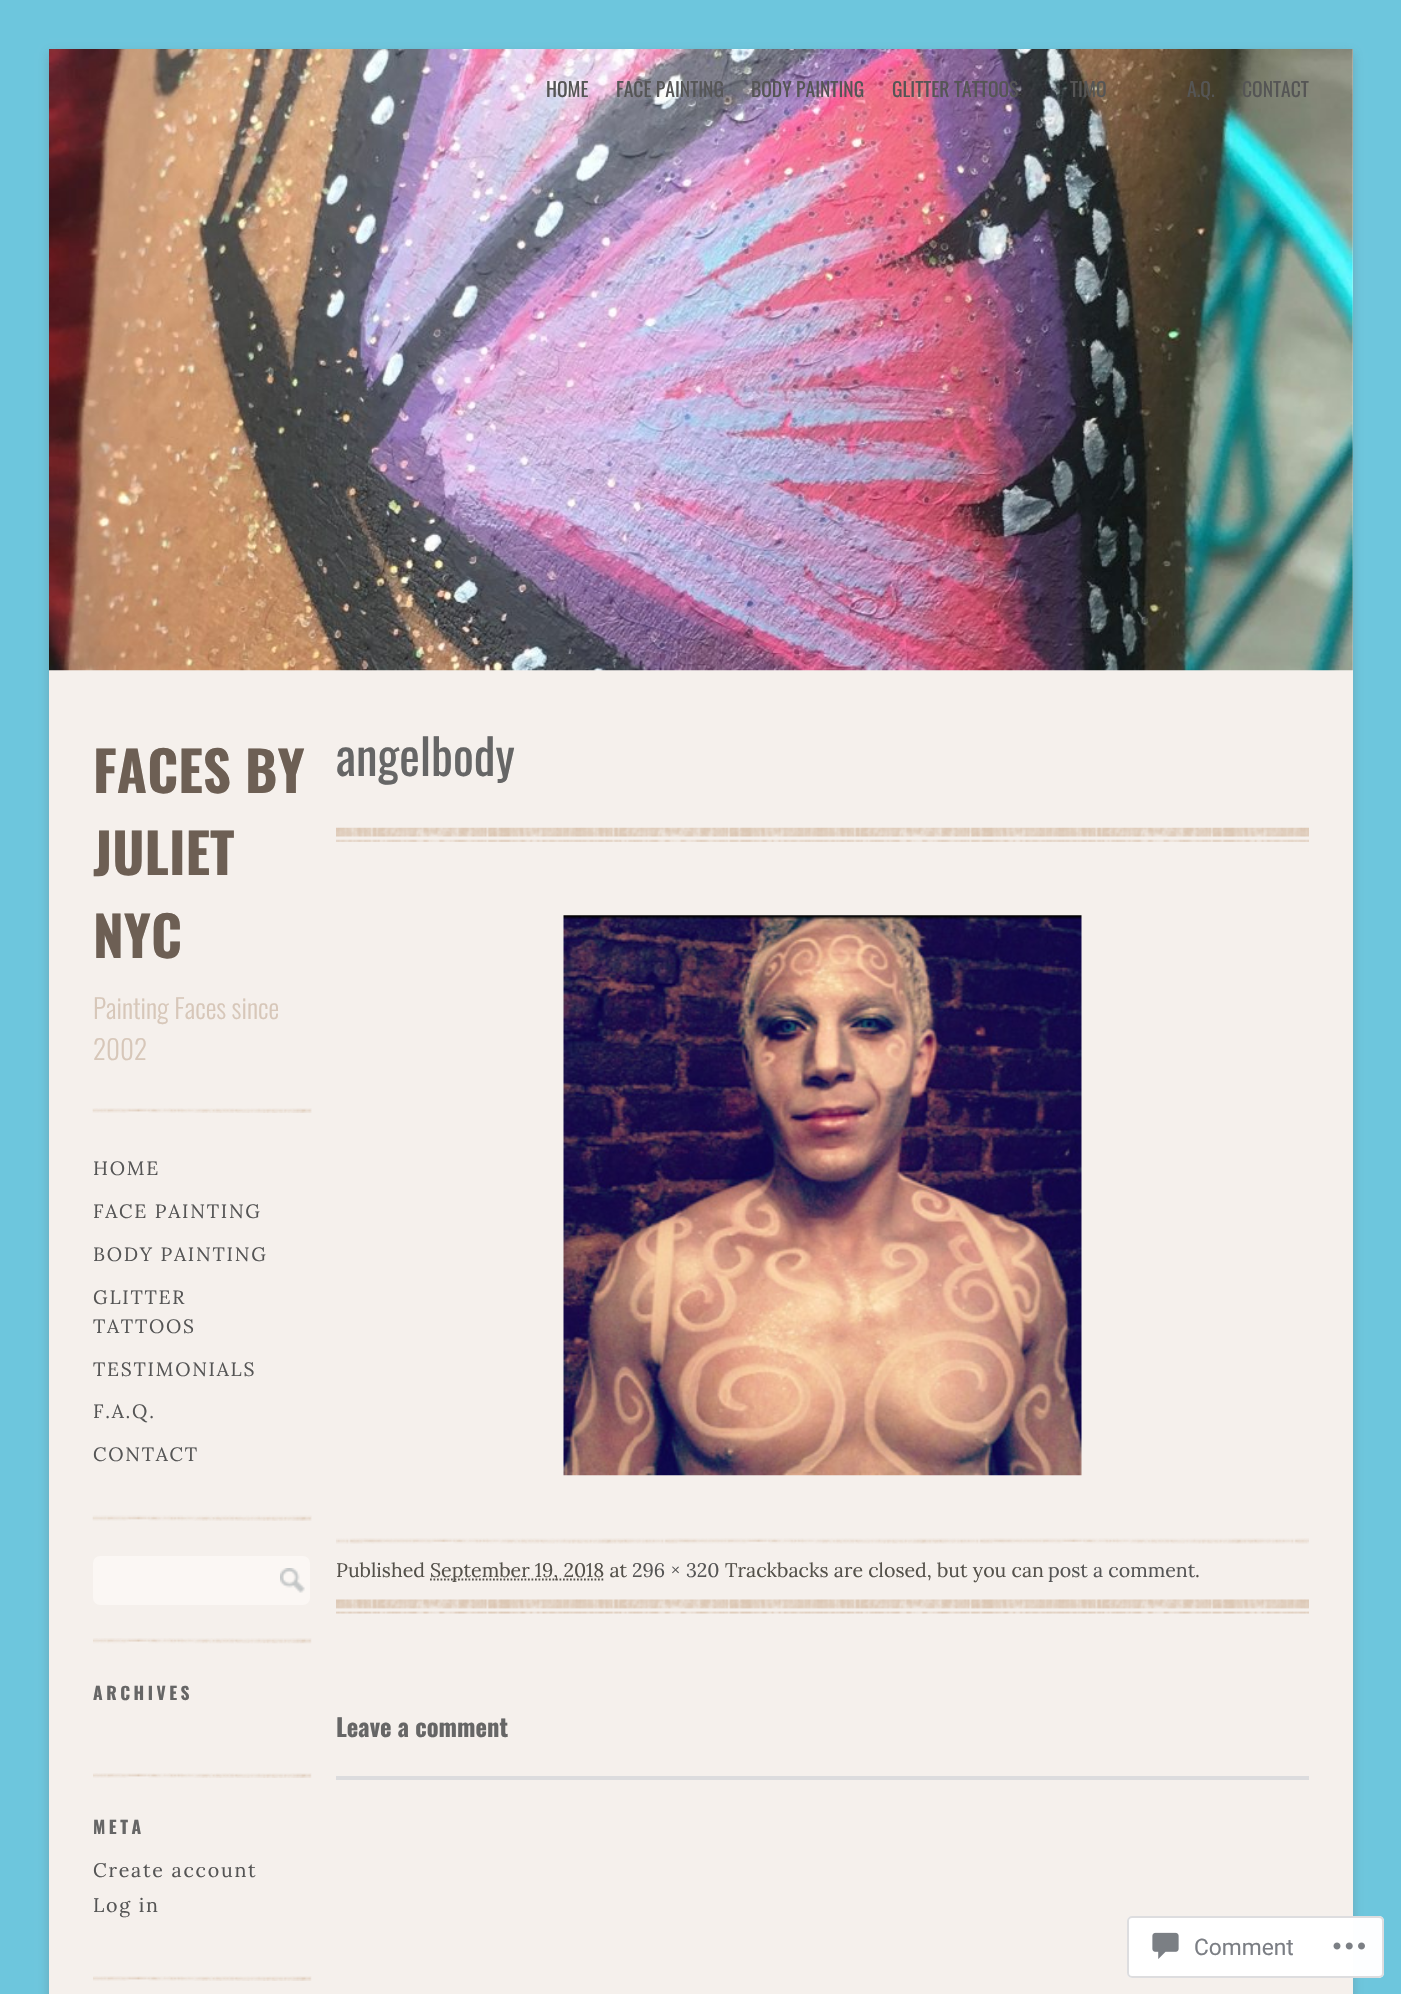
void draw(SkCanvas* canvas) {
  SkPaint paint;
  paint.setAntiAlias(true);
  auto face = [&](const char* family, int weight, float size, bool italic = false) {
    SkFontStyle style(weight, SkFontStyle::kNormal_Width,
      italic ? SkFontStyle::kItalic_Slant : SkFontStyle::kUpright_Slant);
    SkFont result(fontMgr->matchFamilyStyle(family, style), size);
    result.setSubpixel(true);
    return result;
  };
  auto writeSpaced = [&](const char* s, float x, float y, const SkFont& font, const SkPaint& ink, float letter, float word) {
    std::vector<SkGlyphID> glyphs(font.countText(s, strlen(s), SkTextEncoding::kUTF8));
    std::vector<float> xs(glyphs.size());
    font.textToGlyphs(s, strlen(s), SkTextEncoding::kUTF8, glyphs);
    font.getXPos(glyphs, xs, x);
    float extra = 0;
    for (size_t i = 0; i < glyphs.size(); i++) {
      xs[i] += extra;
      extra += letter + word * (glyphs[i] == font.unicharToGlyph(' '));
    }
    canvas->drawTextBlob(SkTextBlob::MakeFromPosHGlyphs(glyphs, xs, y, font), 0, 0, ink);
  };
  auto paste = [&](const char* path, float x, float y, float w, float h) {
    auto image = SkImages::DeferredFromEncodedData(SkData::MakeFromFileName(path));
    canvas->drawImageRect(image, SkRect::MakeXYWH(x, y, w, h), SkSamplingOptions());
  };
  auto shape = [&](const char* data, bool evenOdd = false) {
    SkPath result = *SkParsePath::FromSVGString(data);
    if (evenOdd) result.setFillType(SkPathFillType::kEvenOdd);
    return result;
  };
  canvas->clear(0xff6dc6dd);
  paint.setColor(0x4d646464);
  paint.setMaskFilter(SkMaskFilter::MakeBlur(kNormal_SkBlurStyle, 5));
  canvas->drawRect(SkRect::MakeXYWH(49, 53, 1304, 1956), paint);
  paint.setMaskFilter(nullptr);
  paint.setColor(0xfff5f0ec);
  canvas->drawRect(SkRect::MakeXYWH(49, 49, 1304, 1945), paint);
  paste("img/1.png", 49, 49, 1304, 622);
  paste("img/2.png", 92, 1108, 220, 5);
  paste("img/3.png", 92, 1515, 220, 6);
  paste("img/4.png", 336, 1599, 973, 15);
  paste("img/5.png", 336, 827, 973, 15);
  paste("img/6.png", 563, 915, 519, 561);
  paste("img/7.png", 336, 1538, 973, 6);
  paint.setStroke(true);
  paint.setStrokeWidth(1.8f);
  paint.setColor(0xff54514a);
  paint.setPathEffect(SkDashPathEffect::Make({{1.75f, 1.75f}}, 0));
  canvas->drawPath(shape("M430 1579.5H604"), paint);
  paint.setPathEffect(nullptr);
  paint.setStroke(false);
  paint.setColor(0xffdcdcde);
  canvas->drawRect(SkRect::MakeXYWH(336, 1776, 973, 4), paint);
  paste("img/8.png", 93, 1638, 219, 6);
  paint.setColor(0xfffbf7f4);
  canvas->drawRoundRect(SkRect::MakeXYWH(93, 1556, 217, 49), 7, 7, paint);
  paste("img/9.png", 280, 1568, 25, 25);
  paste("img/10.png", 93, 1773, 219, 5);
  paste("img/10.png", 93, 1976, 219, 5);
  paint.setColor(0xfaffffff);
  canvas->drawRoundRect(SkRect::MakeXYWH(1127, 1916, 257, 62), 5, 5, paint);
  paint.setStroke(true);
  paint.setStrokeWidth(2);
  paint.setColor(0xfadcdcde);
  canvas->drawRoundRect(SkRect::MakeXYWH(1128, 1917, 255, 60), 4, 4, paint);
  paste("img/11.png", 1152, 1932, 27, 27);
  paste("img/12.png", 1333, 1942, 32, 8);
  auto f0 = face("Oswald", 400, 19.6f);
  paint.setStroke(false);
  paint.setColor(0xff555555);
  {
    const struct { const char* s; float x, y; } items[] = {
      {"HOME", 546, 97},
      {"FACE PAINTING", 616, 97},
      {"BODY PAINTING", 751, 97},
      {"GLITTER TATTOOS", 892, 97},
      {"TIMO", 1070, 97},
      {"A.Q.", 1187, 97},
      {"CONTACT", 1242, 97},
    };
    for (auto [s, x, y] : items) {
      canvas->drawString(s, x, y, f0, paint);
    }
  }
  auto f1 = face("Oswald", 700, 55);
  paint.setColor(0xff6d5f54);
  {
    const struct { const char* s; float x, y; } items[] = {
      {"FACES BY", 93, 793},
      {"JULIET", 93, 875},
      {"NYC", 93, 958},
    };
    for (auto [s, x, y] : items) {
      canvas->drawString(s, x, y, f1, paint);
    }
  }
  auto f2 = face("Oswald", 300, 27);
  paint.setColor(0xffd7c7b9);
  canvas->drawString("Painting Faces since", 93, 1019, f2, paint);
  canvas->drawString("2002", 93, 1060, f2, paint);
  auto f3 = face("Lora", 400, 19.25f);
  paint.setColor(0xff555555);
  {
    const struct { const char* s; float x, y; } items[] = {
      {"HOME", 93, 1175},
      {"FACE PAINTING", 93, 1218},
      {"BODY PAINTING", 93, 1261},
      {"GLITTER", 93, 1304},
      {"TATTOOS", 93, 1333},
      {"TESTIMONIALS", 93, 1376},
      {"F.A.Q.", 93, 1418},
      {"CONTACT", 93, 1461},
    };
    for (auto [s, x, y] : items) {
      writeSpaced(s, x, y, f3, paint, 1.75f, 0);
    }
  }
  auto f4 = face("Oswald", 400, 49);
  paint.setColor(0xff666666);
  canvas->drawString("angelbody", 336, 776, f4, paint);
  auto f5 = face("Lora", 400, 19.6f);
  paint.setColor(0xff54514a);
  canvas->drawString("Published", 336, 1577, f5, paint);
  canvas->drawString("September 19, 2018 at", 430, 1577, f5, paint);
  paint.setColor(0xff555555);
  canvas->drawString("296 × 320", 632, 1577, f5, paint);
  paint.setColor(0xff54514a);
  canvas->drawString("Trackbacks are closed, but you can", 725, 1577, f5, paint);
  paint.setColor(0xff555555);
  canvas->drawString("post a comment", 1048, 1577, f5, paint);
  paint.setColor(0xff54514a);
  canvas->drawString(".", 1195, 1577, f5, paint);
  auto f6 = face("Oswald", 700, 24.5f);
  paint.setColor(0xff666666);
  canvas->drawString("Leave a comment", 336, 1737, f6, paint);
  auto f7 = face("Oswald", 700, 17.5f);
  writeSpaced("ARCHIVES", 93, 1700, f7, paint, 3.5f, 0);
  writeSpaced("META", 93, 1834, f7, paint, 3.5f, 0);
  paint.setColor(0xff555555);
  writeSpaced("Create account", 93, 1877, f5, paint, 1.75f, 0);
  writeSpaced("Log in", 93, 1912, f5, paint, 1.75f, 0);
  auto f8 = face("Roboto", 400, 22.75f);
  paint.setColor(0xff7b7e84);
  canvas->drawString("Comment", 1194, 1955, f8, paint);
}
